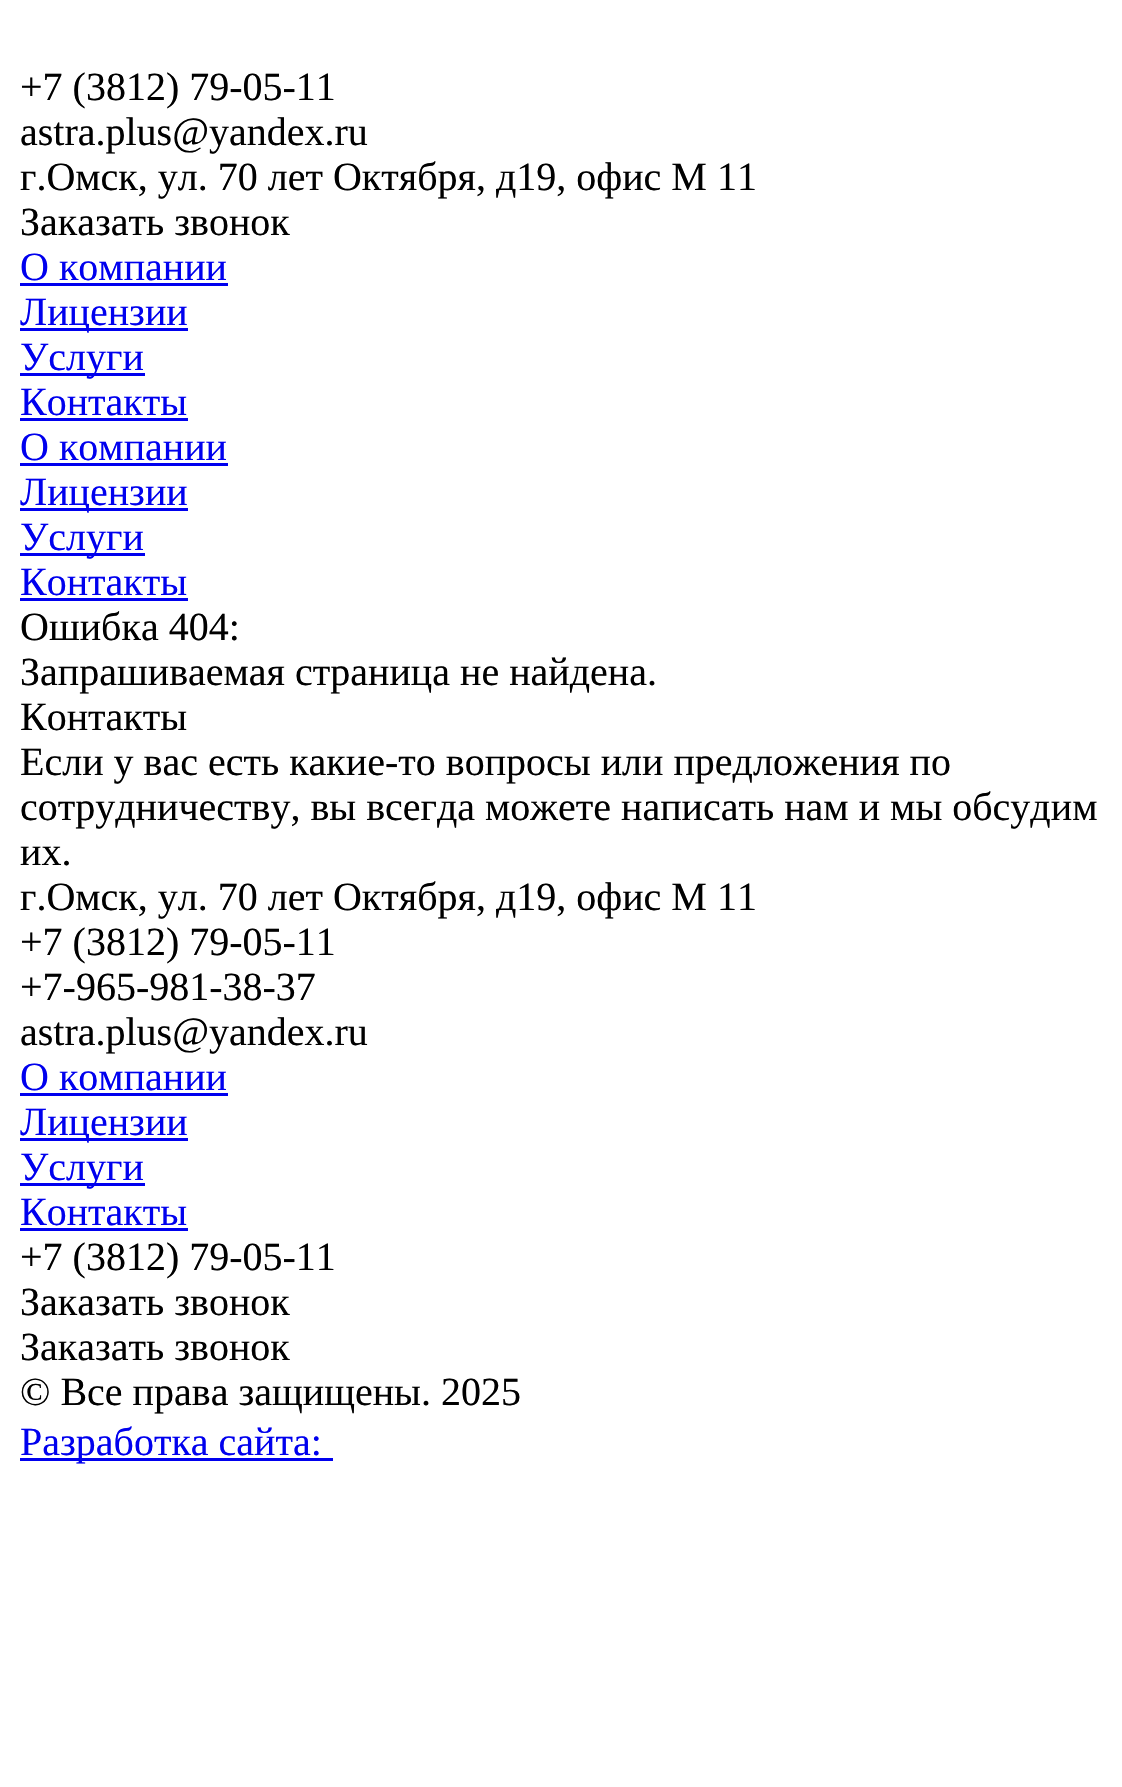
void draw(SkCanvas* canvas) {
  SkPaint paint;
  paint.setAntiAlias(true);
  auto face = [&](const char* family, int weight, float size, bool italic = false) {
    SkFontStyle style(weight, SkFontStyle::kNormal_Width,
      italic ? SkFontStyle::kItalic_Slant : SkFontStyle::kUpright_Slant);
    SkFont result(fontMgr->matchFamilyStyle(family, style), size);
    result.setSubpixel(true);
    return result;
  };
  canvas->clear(0xffffffff);
  {
    const struct { float x, y, w, h; SkColor color; } items[] = {
      {20, 283, 208, 3, 0xff0000ee},
      {20, 328, 168, 3, 0xff0000ee},
      {20, 373, 125, 3, 0xff0000ee},
      {20, 418, 168, 3, 0xff0000ee},
      {20, 463, 208, 3, 0xff0000ee},
      {20, 508, 168, 3, 0xff0000ee},
      {20, 553, 125, 3, 0xff0000ee},
      {20, 598, 168, 3, 0xff0000ee},
      {20, 1093, 208, 3, 0xff0000ee},
      {20, 1138, 168, 3, 0xff0000ee},
      {20, 1183, 125, 3, 0xff0000ee},
      {20, 1228, 168, 3, 0xff0000ee},
      {20, 1458, 313, 3, 0xff0000ee},
    };
    for (auto [x, y, w, h, color] : items) {
      paint.setColor(color);
      canvas->drawRect(SkRect::MakeXYWH(x, y, w, h), paint);
    }
  }
  auto f0 = face("Liberation Serif", 400, 40);
  paint.setColor(0xff000000);
  {
    const struct { const char* s; float x, y; } items[] = {
      {"+7 (3812) 79-05-11", 20, 100},
      {"astra.plus@yandex.ru", 20, 145},
      {"г.Омск, ул. 70 лет Октября, д19, офис М 11", 20, 190},
      {"Заказать звонок", 20, 235},
    };
    for (auto [s, x, y] : items) {
      canvas->drawString(s, x, y, f0, paint);
    }
  }
  paint.setColor(0xff0000ee);
  {
    const struct { const char* s; float x, y; } items[] = {
      {"О компании", 20, 280},
      {"Лицензии", 20, 325},
      {"Услуги", 20, 370},
      {"Контакты", 20, 415},
      {"О компании", 20, 460},
      {"Лицензии", 20, 505},
      {"Услуги", 20, 550},
      {"Контакты", 20, 595},
    };
    for (auto [s, x, y] : items) {
      canvas->drawString(s, x, y, f0, paint);
    }
  }
  paint.setColor(0xff000000);
  {
    const struct { const char* s; float x, y; } items[] = {
      {"Ошибка 404:", 20, 640},
      {"Запрашиваемая страница не найдена.", 20, 685},
      {"Контакты", 20, 730},
      {"Если у вас есть какие-то вопросы или предложения по", 20, 775},
      {"сотрудничеству, вы всегда можете написать нам и мы обсудим", 20, 820},
      {"их.", 20, 865},
      {"г.Омск, ул. 70 лет Октября, д19, офис М 11", 20, 910},
      {"+7 (3812) 79-05-11", 20, 955},
      {"+7-965-981-38-37", 20, 1000},
      {"astra.plus@yandex.ru", 20, 1045},
    };
    for (auto [s, x, y] : items) {
      canvas->drawString(s, x, y, f0, paint);
    }
  }
  paint.setColor(0xff0000ee);
  {
    const struct { const char* s; float x, y; } items[] = {
      {"О компании", 20, 1090},
      {"Лицензии", 20, 1135},
      {"Услуги", 20, 1180},
      {"Контакты", 20, 1225},
    };
    for (auto [s, x, y] : items) {
      canvas->drawString(s, x, y, f0, paint);
    }
  }
  paint.setColor(0xff000000);
  {
    const struct { const char* s; float x, y; } items[] = {
      {"+7 (3812) 79-05-11", 20, 1270},
      {"Заказать звонок", 20, 1315},
      {"Заказать звонок", 20, 1360},
      {"© Все права защищены. 2025", 20, 1405},
    };
    for (auto [s, x, y] : items) {
      canvas->drawString(s, x, y, f0, paint);
    }
  }
  paint.setColor(0xff0000ee);
  canvas->drawString("Разработка сайта:", 20, 1455, f0, paint);
}
